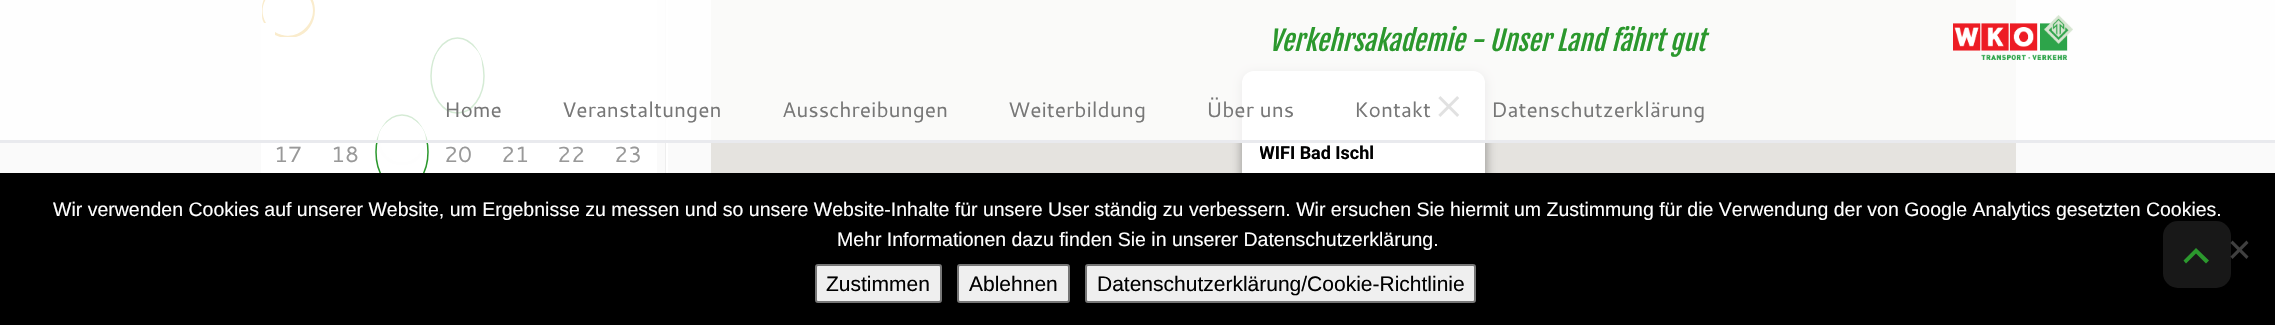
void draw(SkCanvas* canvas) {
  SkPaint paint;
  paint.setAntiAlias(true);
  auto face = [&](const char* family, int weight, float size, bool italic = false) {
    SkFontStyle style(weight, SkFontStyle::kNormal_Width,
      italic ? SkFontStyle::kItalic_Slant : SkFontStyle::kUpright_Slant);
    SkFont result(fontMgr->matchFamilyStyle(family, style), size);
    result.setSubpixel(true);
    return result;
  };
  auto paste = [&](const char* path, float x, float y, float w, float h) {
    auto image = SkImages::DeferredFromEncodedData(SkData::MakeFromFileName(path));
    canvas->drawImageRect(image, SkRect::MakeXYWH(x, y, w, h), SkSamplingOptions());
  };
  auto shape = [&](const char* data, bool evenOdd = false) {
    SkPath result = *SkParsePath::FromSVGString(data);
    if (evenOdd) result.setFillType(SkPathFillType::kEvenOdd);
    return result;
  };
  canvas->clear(0xfffafafa);
  paint.setColor(0xffeeeeee);
  canvas->drawRect(SkRect::MakeXYWH(665, 0, 1, 173), paint);
  paint.setColor(0xffffffff);
  canvas->drawRect(SkRect::MakeXYWH(261, 0, 396, 173), paint);
  paint.setColor(0xffe29d01);
  canvas->drawPath(shape("M288-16C293-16 298-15 302-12V-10C280-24 253 1 266 23H264C263 21 262 19 262 16V6C264-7 275-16 288-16ZM280 37L275 35V32C298 46 324 18 308-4H311C320 11 313 33 296 37Z", true), paint);
  paint.setColor(0xfffefefe);
  canvas->drawPath(shape("M307-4C323 17 297 46 275 31V29C296 44 322 16 304-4ZM288-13C270-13 258 8 267 23H270C256 3 283-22 302-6V-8C298-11 293-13 288-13Z", true), paint);
  paint.setStroke(true);
  paint.setStrokeWidth(1.5f);
  paint.setColor(0xff2b982d);
  canvas->drawPath(shape("M457.5 38C472 38 484 55 484 76C484 96.5 472 113 457.5 113C443 113 431 96.5 431 76C431 55 443 38 457.5 38Z"), paint);
  paint.setStrokeWidth(2);
  paint.setColor(0xfffefefe);
  canvas->drawCircle(458, 65, 23, paint);
  paint.setStrokeWidth(1.5f);
  paint.setColor(0xff2b982d);
  canvas->drawPath(shape("M402 115C416.5 115 428 131.5 428 152C428 173 416.5 190 402 190C387.5 190 376 173 376 152C376 131.5 387.5 115 402 115Z"), paint);
  paint.setStrokeWidth(2);
  paint.setColor(0xfffefefe);
  canvas->drawCircle(402, 141, 23, paint);
  paint.setStroke(false);
  paint.setColor(0xffffffff);
  canvas->drawRect(SkRect::MakeXYWH(666, 0, 2, 173), paint);
  paint.setColor(0xffe5e3df);
  canvas->drawRect(SkRect::MakeXYWH(711, 0, 1305, 173), paint);
  paint.setColor(0x4d000000);
  paint.setMaskFilter(SkMaskFilter::MakeBlur(kNormal_SkBlurStyle, 5));
  canvas->drawRoundRect(SkRect::MakeXYWH(1241, 72, 246, 168), 14, 14, paint);
  paint.setMaskFilter(nullptr);
  paint.setColor(0xffffffff);
  canvas->drawRoundRect(SkRect::MakeXYWH(1242, 71, 243, 165), 12, 12, paint);
  paste("img/2.png", 1438, 96, 22, 21);
  paint.setColor(0xccffffff);
  canvas->drawRect(SkRect::MakeXYWH(0, 0, 2275, 140), paint);
  paint.setColor(0xffe9eaee);
  canvas->drawRect(SkRect::MakeXYWH(0, 140, 2275, 3), paint);
  paste("img/1.png", 1953, 15, 120, 45);
  paint.setColor(0xff000000);
  canvas->drawRect(SkRect::MakeXYWH(0, 173, 2275, 152), paint);
  paint.setColor(0xff404040);
  canvas->drawPath(shape("M2246.5 240.5L2248.5 243L2232.5 259L2230.5 256.5Z"), paint);
  canvas->drawPath(shape("M2230.5 243L2232.5 240.5L2248.5 256.5L2246.5 259Z"), paint);
  paint.setColor(0xffefefef);
  canvas->drawRoundRect(SkRect::MakeXYWH(816, 265, 125, 37), 2, 2, paint);
  paint.setStroke(true);
  paint.setColor(0xff767676);
  canvas->drawRoundRect(SkRect::MakeXYWH(816, 265, 125, 37), 2, 2, paint);
  paint.setStroke(false);
  paint.setColor(0xffefefef);
  canvas->drawRoundRect(SkRect::MakeXYWH(958, 265, 111, 37), 2, 2, paint);
  paint.setStroke(true);
  paint.setColor(0xff767676);
  canvas->drawRoundRect(SkRect::MakeXYWH(958, 265, 111, 37), 2, 2, paint);
  paint.setStroke(false);
  paint.setColor(0xffefefef);
  canvas->drawRoundRect(SkRect::MakeXYWH(1086, 265, 389, 37), 2, 2, paint);
  paint.setStroke(true);
  paint.setColor(0xff767676);
  canvas->drawRoundRect(SkRect::MakeXYWH(1086, 265, 389, 37), 2, 2, paint);
  paint.setStroke(false);
  paint.setColor(0x33777777);
  canvas->drawRoundRect(SkRect::MakeXYWH(2163, 221, 68, 67), 15, 15, paint);
  paint.setColor(0xff2b982d);
  canvas->drawPath(shape("M2206 263.5L2196 253.5L2186 263.5L2183.5 260.5L2196 248L2209 260.5Z"), paint);
  auto f0 = face("Fjalla One", 400, 27, true);
  canvas->drawString("Verkehrsakademie - Unser Land fährt gut", 1269, 51, f0, paint);
  auto f1 = face("Cantarell", 400, 21);
  paint.setColor(0xff777777);
  {
    const struct { const char* s; float x, y; } items[] = {
      {"Home", 444, 117},
      {"Veranstaltungen", 562, 117},
      {"Ausschreibungen", 782, 117},
      {"Weiterbildung", 1008, 117},
      {"Über uns", 1206, 117},
      {"Kontakt", 1354, 117},
      {"Datenschutzerklärung", 1491, 117},
    };
    for (auto [s, x, y] : items) {
      canvas->drawString(s, x, y, f1, paint);
    }
  }
  auto f2 = face("Cantarell", 400, 22);
  paint.setColor(0xff999999);
  {
    const struct { const char* s; float x, y; } items[] = {
      {"17", 274, 162},
      {"18", 331, 162},
      {"20", 444, 162},
      {"21", 501, 162},
      {"22", 557, 162},
      {"23", 614, 162},
    };
    for (auto [s, x, y] : items) {
      canvas->drawString(s, x, y, f2, paint);
    }
  }
  canvas->save();
  canvas->clipRect(SkRect::MakeXYWH(1260, 143, 225, 93));
  auto f3 = face("Roboto", 700, 18);
  paint.setColor(0xff000000);
  canvas->drawString("WIFI Bad Ischl", 1259, 159, f3, paint);
  canvas->restore();
  auto f4 = face("Liberation Sans", 400, 19.5f);
  paint.setColor(0xffffffff);
  canvas->drawString("Wir verwenden Cookies auf unserer Website, um Ergebnisse zu messen und so unsere Website-Inhalte für unsere User ständig zu verbessern. Wir ersuchen Sie hiermit um Zustimmung für die Verwendung der von Google Analytics gesetzten Cookies.", 53, 216, f4, paint);
  canvas->drawString("Mehr Informationen dazu finden Sie in unserer Datenschutzerklärung.", 837, 246, f4, paint);
  auto f5 = face("Liberation Sans", 400, 21);
  paint.setColor(0xff000000);
  {
    const struct { const char* s; float x, y; } items[] = {
      {"Zustimmen", 826, 291},
      {"Ablehnen", 969, 291},
      {"Datenschutzerklärung/Cookie-Richtlinie", 1097, 291},
    };
    for (auto [s, x, y] : items) {
      canvas->drawString(s, x, y, f5, paint);
    }
  }
}
